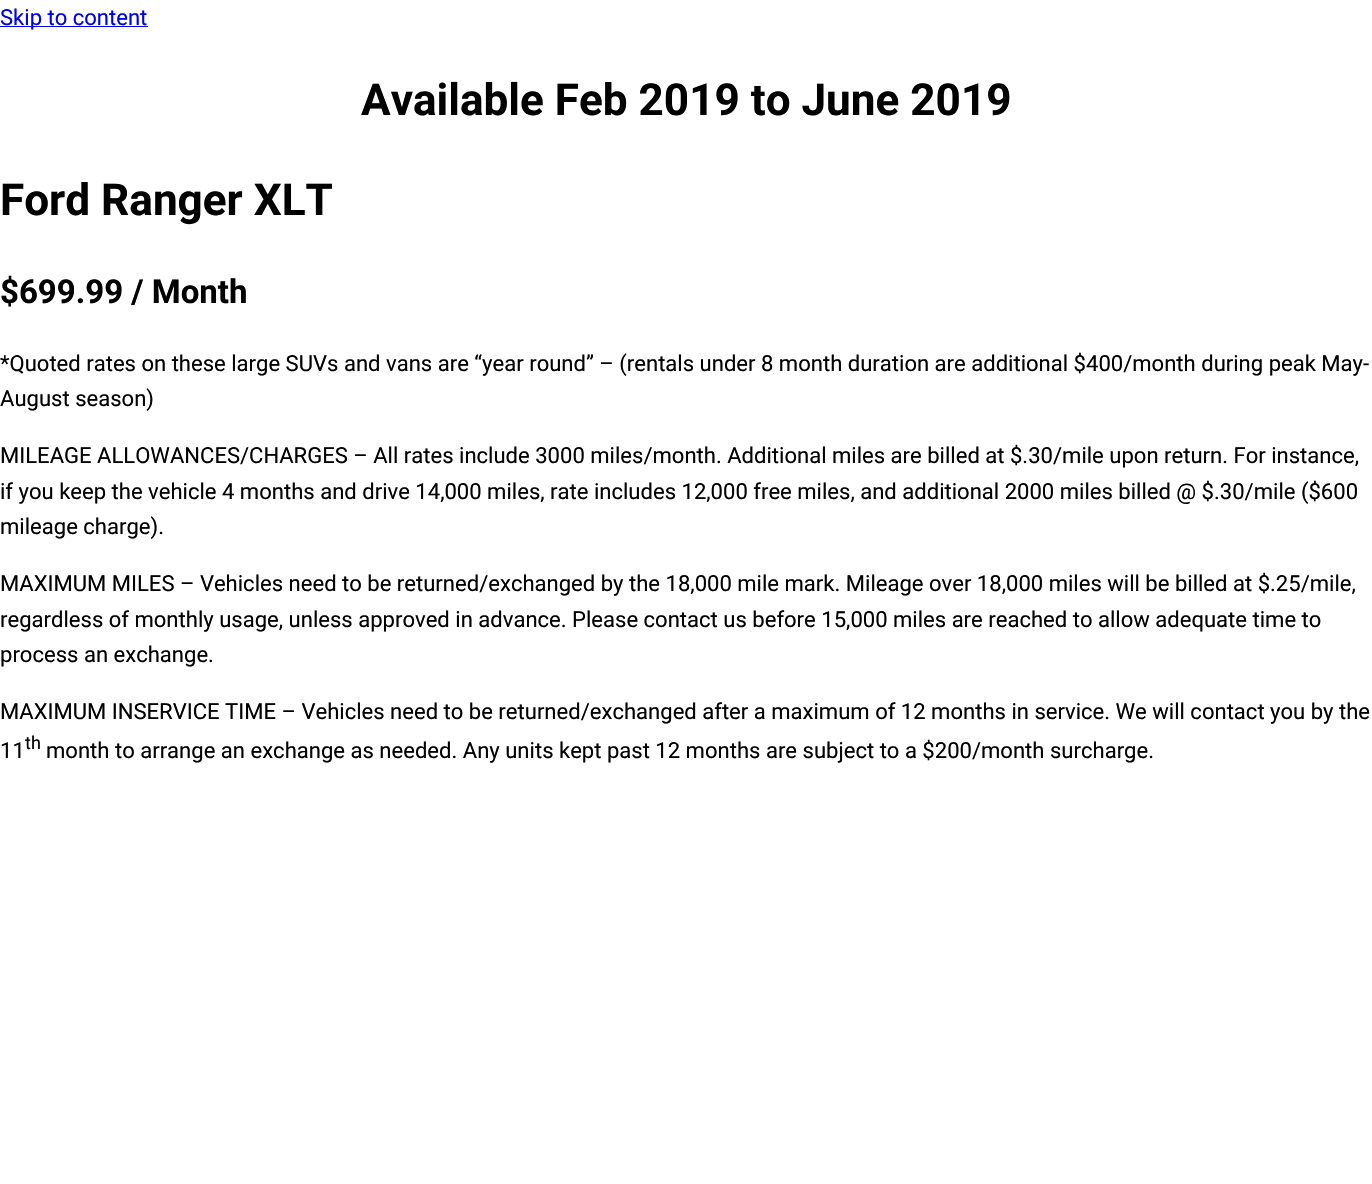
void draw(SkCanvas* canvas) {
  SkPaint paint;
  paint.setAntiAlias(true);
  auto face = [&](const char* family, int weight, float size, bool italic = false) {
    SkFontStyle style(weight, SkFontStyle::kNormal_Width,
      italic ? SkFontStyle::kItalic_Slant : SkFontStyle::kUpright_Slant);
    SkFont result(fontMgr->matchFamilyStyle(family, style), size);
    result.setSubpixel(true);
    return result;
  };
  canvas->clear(0xffffffff);
  paint.setColor(0xff0000ee);
  canvas->drawRect(SkRect::MakeXYWH(0, 26, 148, 1), paint);
  auto f0 = face("Roboto", 400, 22.05f);
  canvas->drawString("Skip to content", 0, 25, f0, paint);
  auto f1 = face("Roboto", 700, 44.1f);
  paint.setColor(0xff000000);
  canvas->drawString("Available Feb 2019 to June 2019", 361, 115, f1, paint);
  canvas->drawString("Ford Ranger XLT", 0, 215, f1, paint);
  auto f2 = face("Roboto", 700, 33);
  canvas->drawString("$699.99 / Month", 0, 303, f2, paint);
  {
    const struct { const char* s; float x, y; } items[] = {
      {"*Quoted rates on these large SUVs and vans are “year round” – (rentals under 8 month duration are additional $400/month during peak May-", 0, 371},
      {"August season)", 0, 406},
      {"MILEAGE ALLOWANCES/CHARGES – All rates include 3000 miles/month. Additional miles are billed at $.30/mile upon return. For instance,", 0, 463},
      {"if you keep the vehicle 4 months and drive 14,000 miles, rate includes 12,000 free miles, and additional 2000 miles billed @ $.30/mile ($600", 0, 499},
      {"mileage charge).", 0, 534},
      {"MAXIMUM MILES – Vehicles need to be returned/exchanged by the 18,000 mile mark. Mileage over 18,000 miles will be billed at $.25/mile,", 0, 591},
      {"regardless of monthly usage, unless approved in advance. Please contact us before 15,000 miles are reached to allow adequate time to", 0, 627},
      {"process an exchange.", 0, 662},
      {"MAXIMUM INSERVICE TIME – Vehicles need to be returned/exchanged after a maximum of 12 months in service. We will contact you by the", 0, 719},
      {"11", 0, 758},
    };
    for (auto [s, x, y] : items) {
      canvas->drawString(s, x, y, f0, paint);
    }
  }
  auto f3 = face("Roboto", 400, 18);
  canvas->drawString("th", 25, 749, f3, paint);
  canvas->drawString("month to arrange an exchange as needed. Any units kept past 12 months are subject to a $200/month surcharge.", 46, 758, f0, paint);
}
